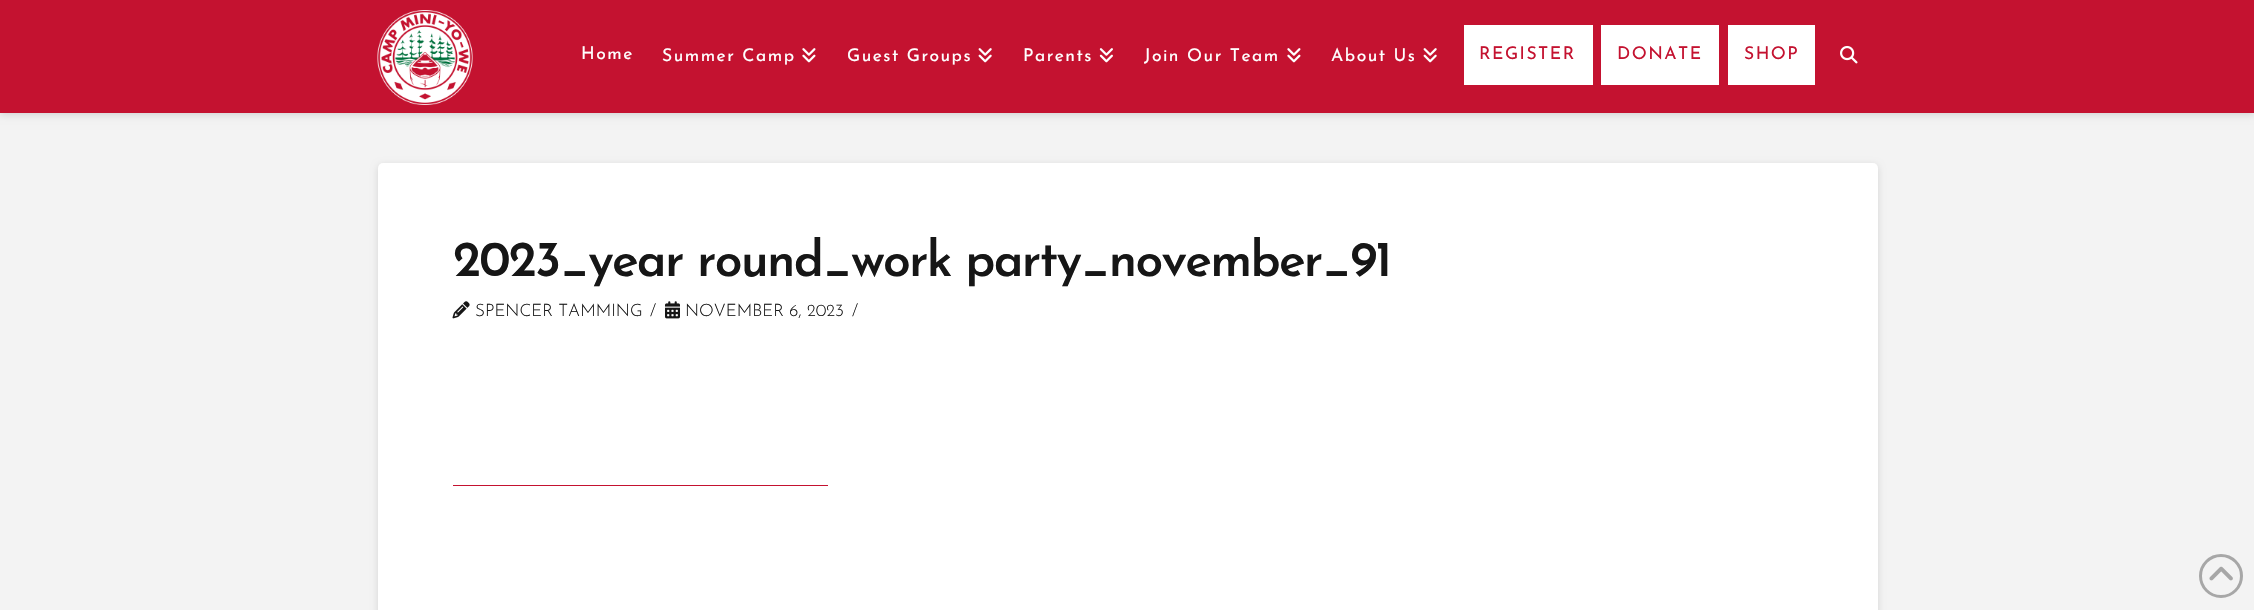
void draw(SkCanvas* canvas) {
  SkPaint paint;
  paint.setAntiAlias(true);
  auto face = [&](const char* family, int weight, float size, bool italic = false) {
    SkFontStyle style(weight, SkFontStyle::kNormal_Width,
      italic ? SkFontStyle::kItalic_Slant : SkFontStyle::kUpright_Slant);
    SkFont result(fontMgr->matchFamilyStyle(family, style), size);
    result.setSubpixel(true);
    return result;
  };
  auto writeSpaced = [&](const char* s, float x, float y, const SkFont& font, const SkPaint& ink, float letter, float word) {
    std::vector<SkGlyphID> glyphs(font.countText(s, strlen(s), SkTextEncoding::kUTF8));
    std::vector<float> xs(glyphs.size());
    font.textToGlyphs(s, strlen(s), SkTextEncoding::kUTF8, glyphs);
    font.getXPos(glyphs, xs, x);
    float extra = 0;
    for (size_t i = 0; i < glyphs.size(); i++) {
      xs[i] += extra;
      extra += letter + word * (glyphs[i] == font.unicharToGlyph(' '));
    }
    canvas->drawTextBlob(SkTextBlob::MakeFromPosHGlyphs(glyphs, xs, y, font), 0, 0, ink);
  };
  auto paste = [&](const char* path, float x, float y, float w, float h) {
    auto image = SkImages::DeferredFromEncodedData(SkData::MakeFromFileName(path));
    canvas->drawImageRect(image, SkRect::MakeXYWH(x, y, w, h), SkSamplingOptions());
  };
  canvas->clear(0xfff3f3f3);
  paint.setColor(0x21000000);
  paint.setMaskFilter(SkMaskFilter::MakeBlur(kNormal_SkBlurStyle, 3.5f));
  canvas->drawRect(SkRect::MakeXYWH(0, 3, 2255, 112), paint);
  paint.setMaskFilter(nullptr);
  paint.setColor(0xffc41230);
  canvas->drawRect(SkRect::MakeXYWH(0, 0, 2254, 113), paint);
  paste("img/1.png", 377, 10, 96, 95);
  paste("img/2.png", 802, 48, 14, 15);
  paste("img/3.png", 978, 48, 14, 15);
  paste("img/4.png", 1099, 48, 14, 15);
  paste("img/2.png", 1287, 48, 14, 15);
  paste("img/3.png", 1423, 48, 14, 15);
  paint.setColor(0xffffffff);
  canvas->drawRect(SkRect::MakeXYWH(1464.5f, 25.5f, 128, 59), paint);
  paint.setStroke(true);
  paint.setStrokeWidth(1);
  canvas->drawRect(SkRect::MakeXYWH(1464.5f, 25.5f, 128, 59), paint);
  paint.setStroke(false);
  canvas->drawRect(SkRect::MakeXYWH(1601.5f, 25.5f, 117, 59), paint);
  paint.setStroke(true);
  canvas->drawRect(SkRect::MakeXYWH(1601.5f, 25.5f, 117, 59), paint);
  paint.setStroke(false);
  canvas->drawRect(SkRect::MakeXYWH(1728.5f, 25.5f, 86, 59), paint);
  paint.setStroke(true);
  canvas->drawRect(SkRect::MakeXYWH(1728.5f, 25.5f, 86, 59), paint);
  paste("img/5.png", 1840, 45, 18, 19);
  paint.setStroke(false);
  paint.setColor(0x21000000);
  paint.setMaskFilter(SkMaskFilter::MakeBlur(kNormal_SkBlurStyle, 3.5f));
  canvas->drawRoundRect(SkRect::MakeXYWH(378, 165, 1500, 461), 5, 5, paint);
  paint.setMaskFilter(nullptr);
  paint.setColor(0xffffffff);
  canvas->drawRoundRect(SkRect::MakeXYWH(378, 163, 1500, 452), 5, 5, paint);
  paste("img/6.png", 452, 301, 18, 18);
  paste("img/7.png", 665, 301, 15, 18);
  paint.setColor(0xffc41230);
  canvas->drawRect(SkRect::MakeXYWH(453, 485, 375, 1), paint);
  paint.setStroke(true);
  paint.setStrokeWidth(3);
  paint.setColor(0xffa7a7a7);
  canvas->drawCircle(2221, 576, 20.5f, paint);
  paste("img/8.png", 2209, 566, 24, 15);
  auto f0 = face("Josefin Sans", 400, 17.5f);
  paint.setStroke(false);
  paint.setColor(0xffffffff);
  {
    const struct { const char* s; float x, y; } items[] = {
      {"Home", 581, 59},
      {"Summer Camp", 662, 61},
      {"Guest Groups", 847, 61},
      {"Parents", 1023, 61},
      {"Join Our Team", 1144, 61},
      {"About Us", 1331, 61},
    };
    for (auto [s, x, y] : items) {
      writeSpaced(s, x, y, f0, paint, 1.5f, 0);
    }
  }
  paint.setColor(0xffc41230);
  {
    const struct { const char* s; float x, y; } items[] = {
      {"REGISTER", 1479, 59},
      {"DONATE", 1617, 59},
      {"SHOP", 1744, 59},
    };
    for (auto [s, x, y] : items) {
      writeSpaced(s, x, y, f0, paint, 1.5f, 0);
    }
  }
  auto f1 = face("Josefin Sans", 600, 50);
  paint.setColor(0xff161616);
  writeSpaced("2023_year round_work party_november_91", 453, 276, f1, paint, -1.75f, 0);
  auto f2 = face("Josefin Sans", 300, 17.1f);
  {
    const struct { const char* s; float x, y; } items[] = {
      {"SPENCER TAMMING", 475, 316},
      {"/", 650, 316},
      {"NOVEMBER 6, 2023", 685, 316},
      {"/", 852, 316},
    };
    for (auto [s, x, y] : items) {
      canvas->drawString(s, x, y, f2, paint);
    }
  }
}
